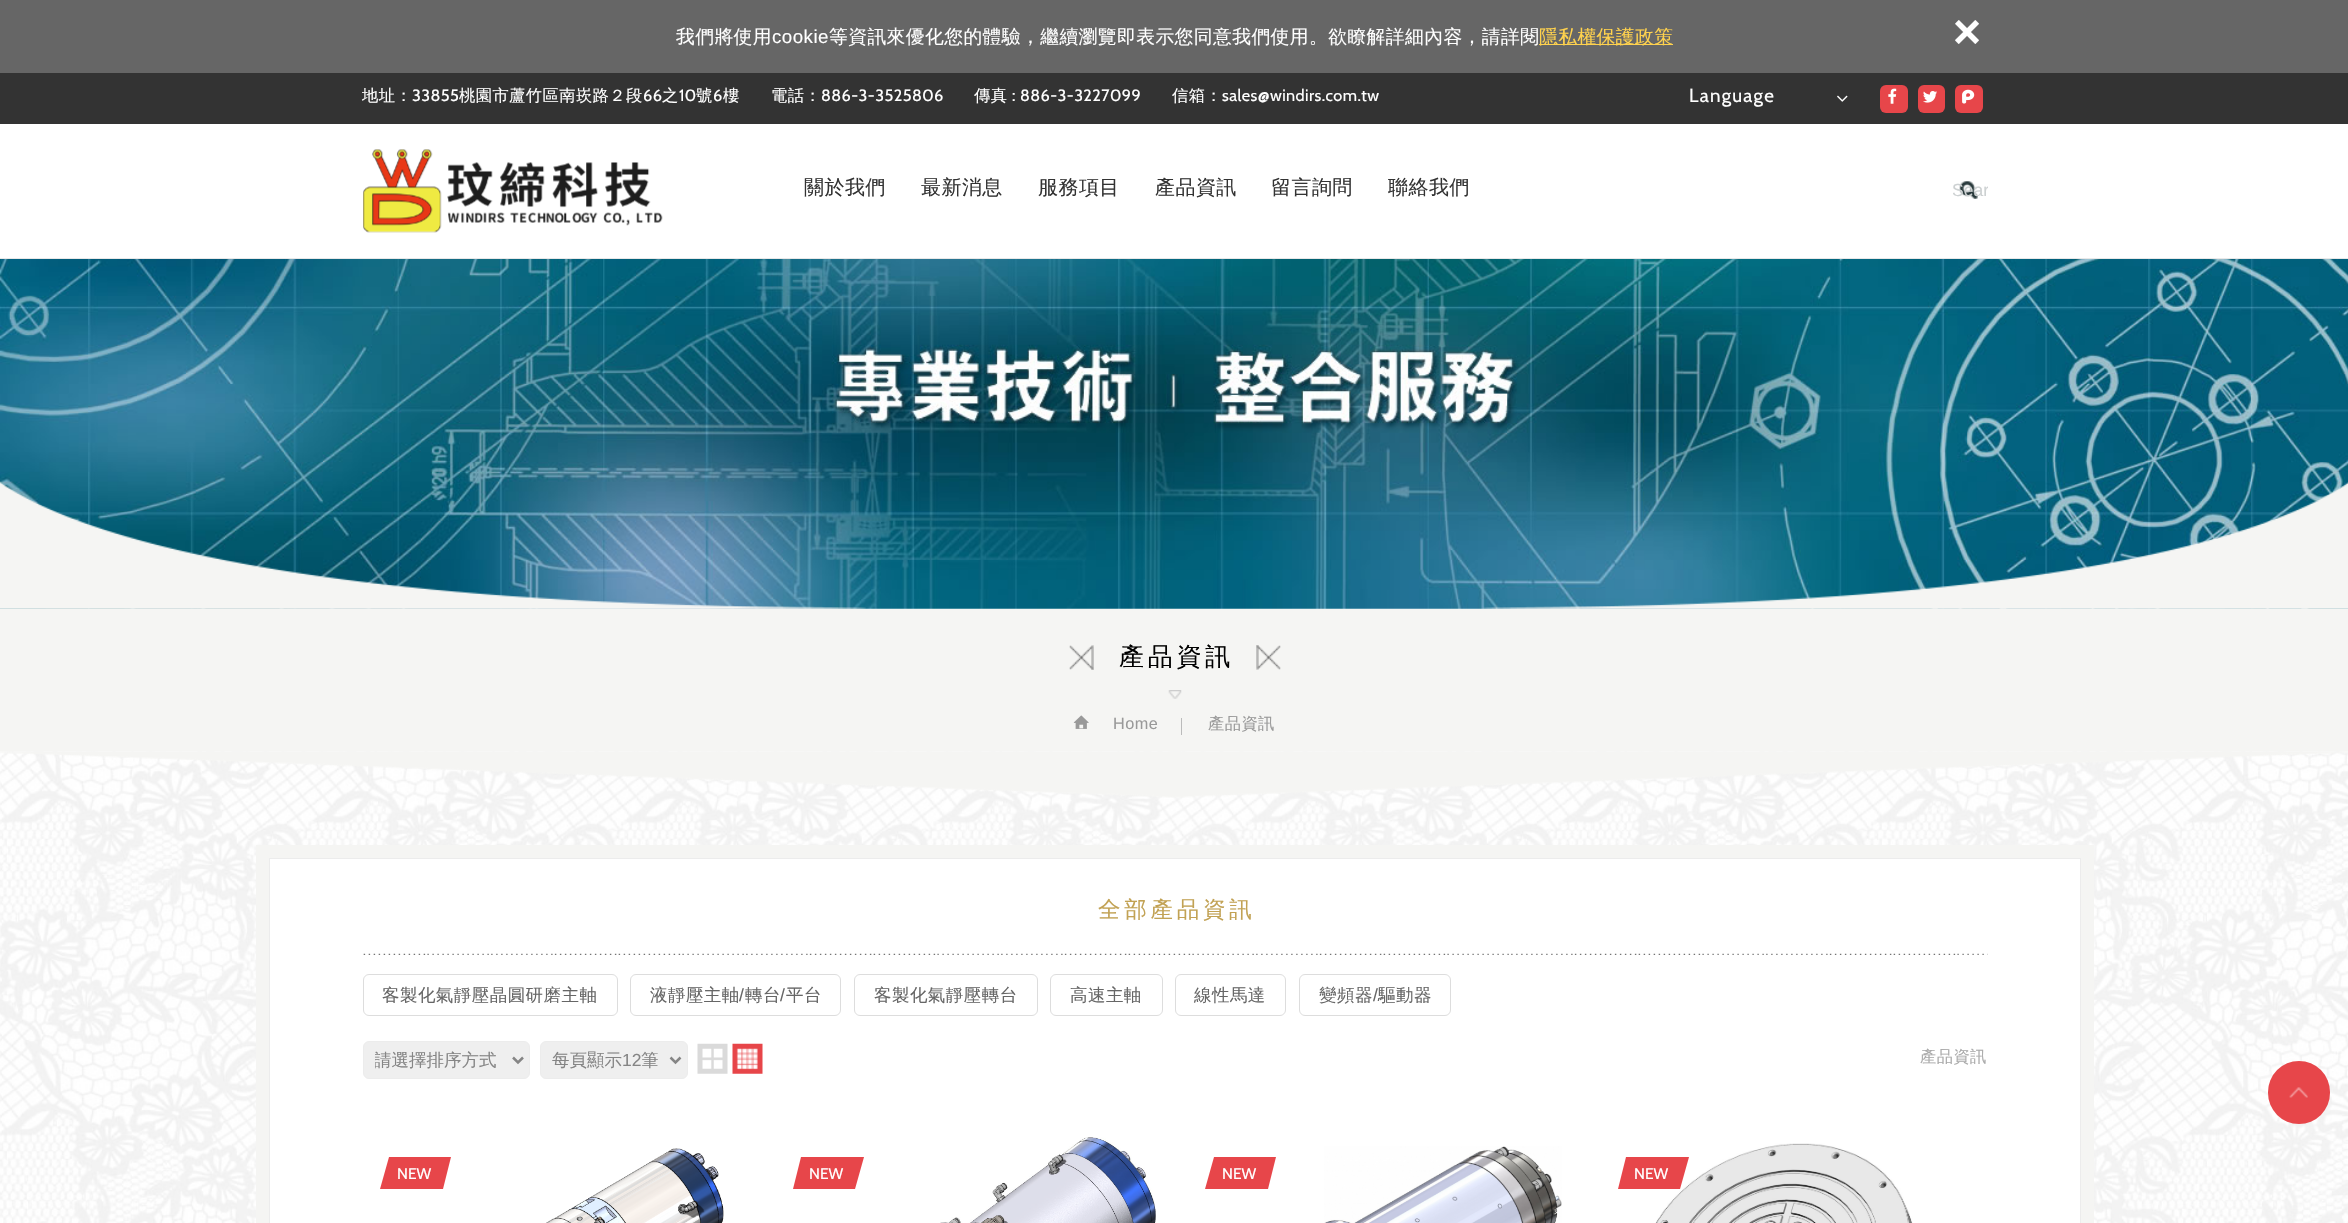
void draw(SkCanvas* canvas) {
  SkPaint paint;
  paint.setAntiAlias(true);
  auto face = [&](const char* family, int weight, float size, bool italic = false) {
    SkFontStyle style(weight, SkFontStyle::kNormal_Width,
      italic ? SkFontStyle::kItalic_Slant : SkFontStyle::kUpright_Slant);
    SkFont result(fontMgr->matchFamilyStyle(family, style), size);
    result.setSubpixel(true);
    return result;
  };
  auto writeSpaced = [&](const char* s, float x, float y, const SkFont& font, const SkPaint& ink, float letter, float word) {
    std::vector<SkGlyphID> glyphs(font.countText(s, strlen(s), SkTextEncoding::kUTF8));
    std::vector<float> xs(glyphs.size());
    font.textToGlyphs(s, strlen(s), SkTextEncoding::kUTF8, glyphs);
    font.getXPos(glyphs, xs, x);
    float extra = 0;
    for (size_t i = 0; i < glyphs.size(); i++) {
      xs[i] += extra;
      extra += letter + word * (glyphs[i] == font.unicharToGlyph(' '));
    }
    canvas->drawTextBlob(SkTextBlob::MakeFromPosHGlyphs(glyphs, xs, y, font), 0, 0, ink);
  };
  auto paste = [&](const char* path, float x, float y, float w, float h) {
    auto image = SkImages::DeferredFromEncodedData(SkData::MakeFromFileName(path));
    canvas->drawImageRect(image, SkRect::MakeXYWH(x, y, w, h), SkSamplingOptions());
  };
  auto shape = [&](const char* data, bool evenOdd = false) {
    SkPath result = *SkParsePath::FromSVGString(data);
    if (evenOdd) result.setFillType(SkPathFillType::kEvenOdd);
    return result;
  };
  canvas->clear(0xffffffff);
  {
    const struct { float x, y, w, h; SkColor color; } items[] = {
      {0, 258, 2348, 1, 0xffe8e8e8},
      {0, 0, 2348, 73, 0xff666666},
      {1539, 44, 134, 1, 0xffffd24d},
      {0, 73, 2348, 51, 0xff333333},
    };
    for (auto [x, y, w, h, color] : items) {
      paint.setColor(color);
      canvas->drawRect(SkRect::MakeXYWH(x, y, w, h), paint);
    }
  }
  paste("img/1.png", 1837, 95, 11, 7);
  paint.setColor(0xffe7464a);
  canvas->drawRoundRect(SkRect::MakeXYWH(1880, 85, 28, 28), 6, 6, paint);
  paste("img/2.png", 1888, 88, 9, 16);
  canvas->drawRoundRect(SkRect::MakeXYWH(1918, 85, 27, 28), 6, 6, paint);
  paste("img/3.png", 1923, 91, 14, 12);
  canvas->drawRoundRect(SkRect::MakeXYWH(1955, 85, 28, 28), 6, 6, paint);
  paste("img/4.png", 1962, 89, 13, 15);
  paste("img/5.png", 363, 149, 300, 84);
  paste("img/6.png", 1959, 181, 19, 18);
  paste("img/7.png", 0, 259, 2348, 350);
  paste("img/8.png", 0, 481, 2348, 128);
  paint.setColor(0xfff5f5f3);
  canvas->drawRect(SkRect::MakeXYWH(0, 609, 2348, 142), paint);
  paste("img/9.png", 1069, 645, 25, 25);
  paste("img/10.png", 1256, 645, 25, 25);
  paste("img/11.png", 1168, 690, 14, 9);
  paste("img/12.png", 1073, 715, 16, 14);
  paint.setColor(0xffbbbbbb);
  canvas->drawRect(SkRect::MakeXYWH(1181, 718, 1, 17), paint);
  paste("img/13.png", 0, 751, 2348, 472);
  paste("img/14.png", 0, 751, 2348, 47);
  paint.setColor(0xffffffff);
  canvas->drawRect(SkRect::MakeXYWH(269.5f, 858.5f, 1811, 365), paint);
  paint.setStroke(true);
  paint.setStrokeWidth(1);
  paint.setColor(0xffececec);
  canvas->drawRect(SkRect::MakeXYWH(269.5f, 858.5f, 1811, 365), paint);
  paint.setStrokeWidth(13);
  paint.setColor(0xfff5f5f3);
  canvas->drawRect(SkRect::MakeXYWH(262.5f, 851.5f, 1825, 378), paint);
  paste("img/15.png", 363, 953, 1625, 2);
  paint.setStrokeWidth(1);
  paint.setColor(0xffdddddd);
  canvas->drawRoundRect(SkRect::MakeXYWH(363.5f, 974.5f, 254, 41), 5.5f, 5.5f, paint);
  canvas->drawRoundRect(SkRect::MakeXYWH(630.5f, 974.5f, 210, 41), 5.5f, 5.5f, paint);
  canvas->drawRoundRect(SkRect::MakeXYWH(854.5f, 974.5f, 183, 41), 5.5f, 5.5f, paint);
  canvas->drawRoundRect(SkRect::MakeXYWH(1050.5f, 974.5f, 112, 41), 5.5f, 5.5f, paint);
  canvas->drawRoundRect(SkRect::MakeXYWH(1175.5f, 974.5f, 110, 41), 5.5f, 5.5f, paint);
  canvas->drawRoundRect(SkRect::MakeXYWH(1299.5f, 974.5f, 151, 41), 5.5f, 5.5f, paint);
  paint.setStroke(false);
  paint.setColor(0xffefefef);
  canvas->drawRoundRect(SkRect::MakeXYWH(363.5f, 1041.5f, 166, 37), 5.5f, 5.5f, paint);
  paint.setStroke(true);
  paint.setColor(0xffececec);
  canvas->drawRoundRect(SkRect::MakeXYWH(363.5f, 1041.5f, 166, 37), 5.5f, 5.5f, paint);
  paint.setStrokeWidth(2.5f);
  paint.setColor(0xff858585);
  canvas->drawPath(shape("M513 1057.5L518 1062.5L523 1057.5"), paint);
  paint.setStroke(false);
  paint.setColor(0xffefefef);
  canvas->drawRoundRect(SkRect::MakeXYWH(540.5f, 1041.5f, 147, 37), 5.5f, 5.5f, paint);
  paint.setStroke(true);
  paint.setStrokeWidth(1);
  paint.setColor(0xffececec);
  canvas->drawRoundRect(SkRect::MakeXYWH(540.5f, 1041.5f, 147, 37), 5.5f, 5.5f, paint);
  paint.setStrokeWidth(2.5f);
  paint.setColor(0xff858585);
  canvas->drawPath(shape("M670.5 1057.5L675.5 1062.5L680.5 1057.5"), paint);
  paste("img/16.png", 697, 1043, 31, 31);
  paste("img/17.png", 732, 1043, 31, 31);
  paint.setStroke(false);
  paint.setColor(0xffe7464a);
  canvas->drawPath(shape("M389 1157H451L443 1189H380Z"), paint);
  paste("img/18.png", 546, 1148, 178, 75);
  canvas->drawPath(shape("M801 1157H864L855 1189H793Z"), paint);
  paste("img/19.png", 940, 1137, 216, 86);
  canvas->drawPath(shape("M1214 1157H1276L1268 1189H1205Z"), paint);
  paste("img/20.png", 1324, 1146, 238, 77);
  paste("img/21.png", 1655, 1143, 258, 80);
  canvas->drawPath(shape("M1626 1157H1689L1680 1189H1618Z"), paint);
  canvas->drawRoundRect(SkRect::MakeXYWH(2268, 1061, 62, 63), 31, 31, paint);
  paste("img/22.png", 2289, 1087, 19, 11);
  auto f0 = face("WenQuanYi Zen Hei", 500, 18.75f);
  paint.setColor(0xffffffff);
  writeSpaced("我們將使用", 676, 43, f0, paint, 0.45f, 0);
  auto f1 = face("Liberation Sans", 400, 18.75f);
  writeSpaced("cookie", 772, 43, f1, paint, 0.45f, 0);
  writeSpaced("等資訊來優化您的體驗，繼續瀏覽即表示您同意我們使用。欲瞭解詳細內容，請詳閱", 829, 43, f0, paint, 0.45f, 0);
  paint.setColor(0xffffd24d);
  writeSpaced("隱私權保護政策", 1539, 43, f0, paint, 0.45f, 0);
  auto f2 = face("Liberation Sans", 700, 48);
  paint.setColor(0xffffffff);
  canvas->drawString("×", 1953, 48, f2, paint);
  auto f3 = face("WenQuanYi Zen Hei", 500, 16.25f);
  writeSpaced("地址：", 362, 101, f3, paint, 0.45f, 0);
  auto f4 = face("Cabin", 400, 16.25f);
  writeSpaced("33855", 412, 101, f4, paint, 0.45f, 0);
  writeSpaced("桃園市蘆竹區南崁路２段", 459, 101, f3, paint, 0.45f, 0);
  writeSpaced("66", 643, 101, f4, paint, 0.45f, 0);
  writeSpaced("之", 662, 101, f3, paint, 0.45f, 0);
  writeSpaced("10", 679, 101, f4, paint, 0.45f, 0);
  writeSpaced("號", 696, 101, f3, paint, 0.45f, 0);
  writeSpaced("6", 713, 101, f4, paint, 0.45f, 0);
  writeSpaced("樓", 723, 101, f3, paint, 0.45f, 0);
  writeSpaced("電話：", 771, 101, f3, paint, 0.45f, 0);
  writeSpaced("886-3-3525806", 821, 101, f4, paint, 0.45f, 0);
  writeSpaced("傳真", 974, 101, f3, paint, 0.45f, 0);
  writeSpaced(": 886-3-3227099", 1012, 101, f4, paint, 0.45f, 0);
  writeSpaced("信箱：", 1172, 101, f3, paint, 0.45f, 0);
  writeSpaced("sales@windirs.com.tw", 1222, 101, f4, paint, 0.45f, 0);
  auto f5 = face("Cabin", 400, 18.75f);
  writeSpaced("Language", 1689, 102, f5, paint, 1.25f, 0);
  auto f6 = face("WenQuanYi Zen Hei", 500, 20);
  paint.setColor(0xff333333);
  {
    const struct { const char* s; float x, y; } items[] = {
      {"關於我們", 804, 194},
      {"最新消息", 921, 194},
      {"服務項目", 1038, 194},
      {"產品資訊", 1155, 194},
      {"留言詢問", 1271, 194},
      {"聯絡我們", 1388, 194},
    };
    for (auto [s, x, y] : items) {
      writeSpaced(s, x, y, f6, paint, 0.45f, 0);
    }
  }
  canvas->save();
  canvas->clipRect(SkRect::MakeXYWH(1953, 180, 35, 20));
  auto f7 = face("Liberation Sans", 400, 17.5f);
  paint.setColor(0xffcdd1d2);
  canvas->drawString("Sear", 1952, 196, f7, paint);
  canvas->restore();
  auto f8 = face("WenQuanYi Zen Hei", 500, 25);
  paint.setColor(0xff000000);
  writeSpaced("產品資訊", 1119, 665, f8, paint, 3.75f, 0);
  auto f9 = face("Liberation Sans", 400, 16.25f);
  paint.setColor(0xff999999);
  writeSpaced("Home", 1113, 729, f9, paint, 0.45f, 0);
  writeSpaced("產品資訊", 1208, 729, f3, paint, 0.45f, 0);
  auto f10 = face("WenQuanYi Zen Hei", 500, 22.5f);
  paint.setColor(0xffc2a254);
  writeSpaced("全部產品資訊", 1098, 917, f10, paint, 3.75f, 0);
  auto f11 = face("WenQuanYi Zen Hei", 500, 17.5f);
  paint.setColor(0xff666666);
  writeSpaced("客製化氣靜壓晶圓研磨主軸", 382, 1001, f11, paint, 0.45f, 0);
  writeSpaced("液靜壓主軸", 650, 1001, f11, paint, 0.45f, 0);
  writeSpaced("/", 739, 1001, f7, paint, 0.45f, 0);
  writeSpaced("轉台", 745, 1001, f11, paint, 0.45f, 0);
  writeSpaced("/", 780, 1001, f7, paint, 0.45f, 0);
  {
    const struct { const char* s; float x, y; } items[] = {
      {"平台", 786, 1001},
      {"客製化氣靜壓轉台", 874, 1001},
      {"高速主軸", 1070, 1001},
      {"線性馬達", 1194, 1001},
      {"變頻器", 1319, 1001},
    };
    for (auto [s, x, y] : items) {
      writeSpaced(s, x, y, f11, paint, 0.45f, 0);
    }
  }
  writeSpaced("/", 1373, 1001, f7, paint, 0.45f, 0);
  writeSpaced("驅動器", 1378, 1001, f11, paint, 0.45f, 0);
  canvas->save();
  canvas->clipRect(SkRect::MakeXYWH(375, 1049, 128, 22));
  paint.setColor(0xff858585);
  canvas->drawString("請選擇排序方式", 374, 1066, f11, paint);
  canvas->restore();
  canvas->drawString("每頁顯示", 552, 1066, f11, paint);
  canvas->drawString("12", 622, 1066, f7, paint);
  canvas->drawString("筆", 641, 1066, f11, paint);
  paint.setColor(0xffaaaaaa);
  writeSpaced("產品資訊", 1920, 1062, f3, paint, 0.45f, 0);
  auto f12 = face("Cabin", 400, 15.5f);
  paint.setColor(0xffffffff);
  {
    const struct { const char* s; float x, y; } items[] = {
      {"NEW", 397, 1179},
      {"NEW", 809, 1179},
      {"NEW", 1222, 1179},
      {"NEW", 1634, 1179},
    };
    for (auto [s, x, y] : items) {
      canvas->drawString(s, x, y, f12, paint);
    }
  }
}
